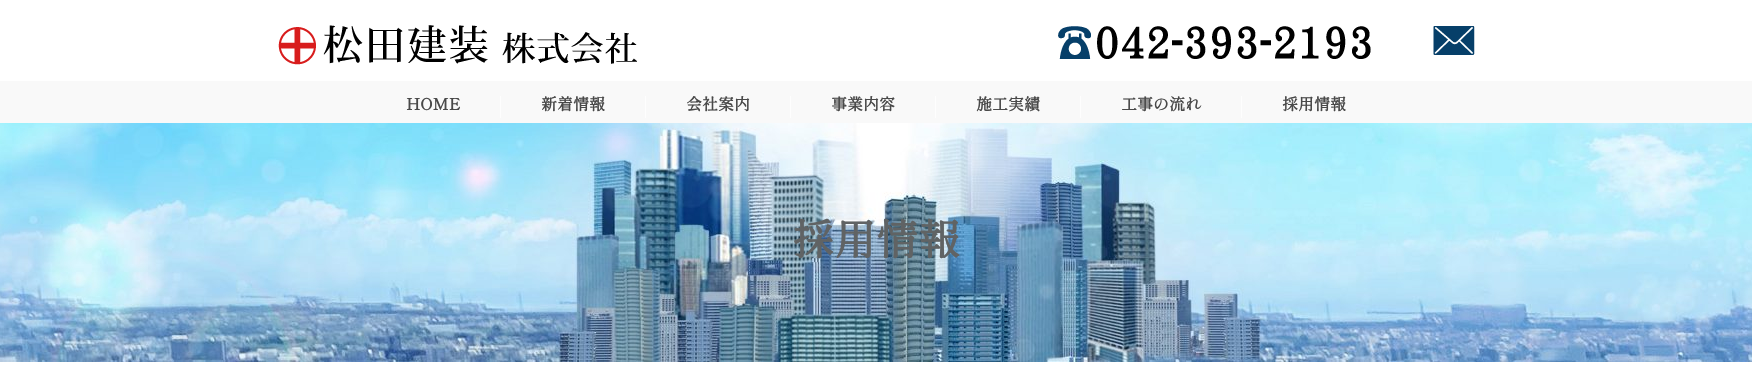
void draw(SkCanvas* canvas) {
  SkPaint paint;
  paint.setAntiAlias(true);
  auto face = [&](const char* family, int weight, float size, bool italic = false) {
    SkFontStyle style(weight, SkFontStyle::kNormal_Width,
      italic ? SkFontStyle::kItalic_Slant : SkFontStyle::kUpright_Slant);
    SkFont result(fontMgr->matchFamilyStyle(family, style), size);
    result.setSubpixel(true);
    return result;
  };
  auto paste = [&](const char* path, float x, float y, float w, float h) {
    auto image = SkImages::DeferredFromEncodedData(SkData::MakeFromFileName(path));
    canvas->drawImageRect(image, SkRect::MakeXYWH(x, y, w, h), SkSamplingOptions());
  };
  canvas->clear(0xffffffff);
  paste("img/1.png", 278, 25, 359, 40);
  paste("img/2.png", 1058, 26, 313, 33);
  paste("img/3.png", 1433, 26, 42, 29);
  {
    const struct { float x, y, w, h; SkColor color; } items[] = {
      {0, 81, 1752, 42, 0xfff9f9f9},
      {500, 96, 1, 22, 0xfffefefe},
      {645, 96, 1, 22, 0xfffefefe},
      {790, 96, 1, 22, 0xfffefefe},
      {935, 96, 1, 22, 0xfffefefe},
      {1080, 96, 1, 22, 0xfffefefe},
      {1241, 96, 1, 22, 0xfffefefe},
    };
    for (auto [x, y, w, h, color] : items) {
      paint.setColor(color);
      canvas->drawRect(SkRect::MakeXYWH(x, y, w, h), paint);
    }
  }
  paste("img/4.png", 0, 123, 1752, 239);
  auto f0 = face("Shippori Mincho B1", 700, 16);
  paint.setColor(0xff494949);
  {
    const struct { const char* s; float x, y; } items[] = {
      {"HOME", 406, 110},
      {"新着情報", 541, 110},
      {"会社案内", 686, 110},
      {"事業内容", 831, 110},
      {"施工実績", 976, 110},
      {"工事の流れ", 1121, 110},
      {"採用情報", 1282, 110},
    };
    for (auto [s, x, y] : items) {
      canvas->drawString(s, x, y, f0, paint);
    }
  }
  auto f1 = face("Shippori Mincho B1", 700, 42);
  paint.setColor(0xff606364);
  canvas->drawString("採用情報", 792, 255, f1, paint);
}
